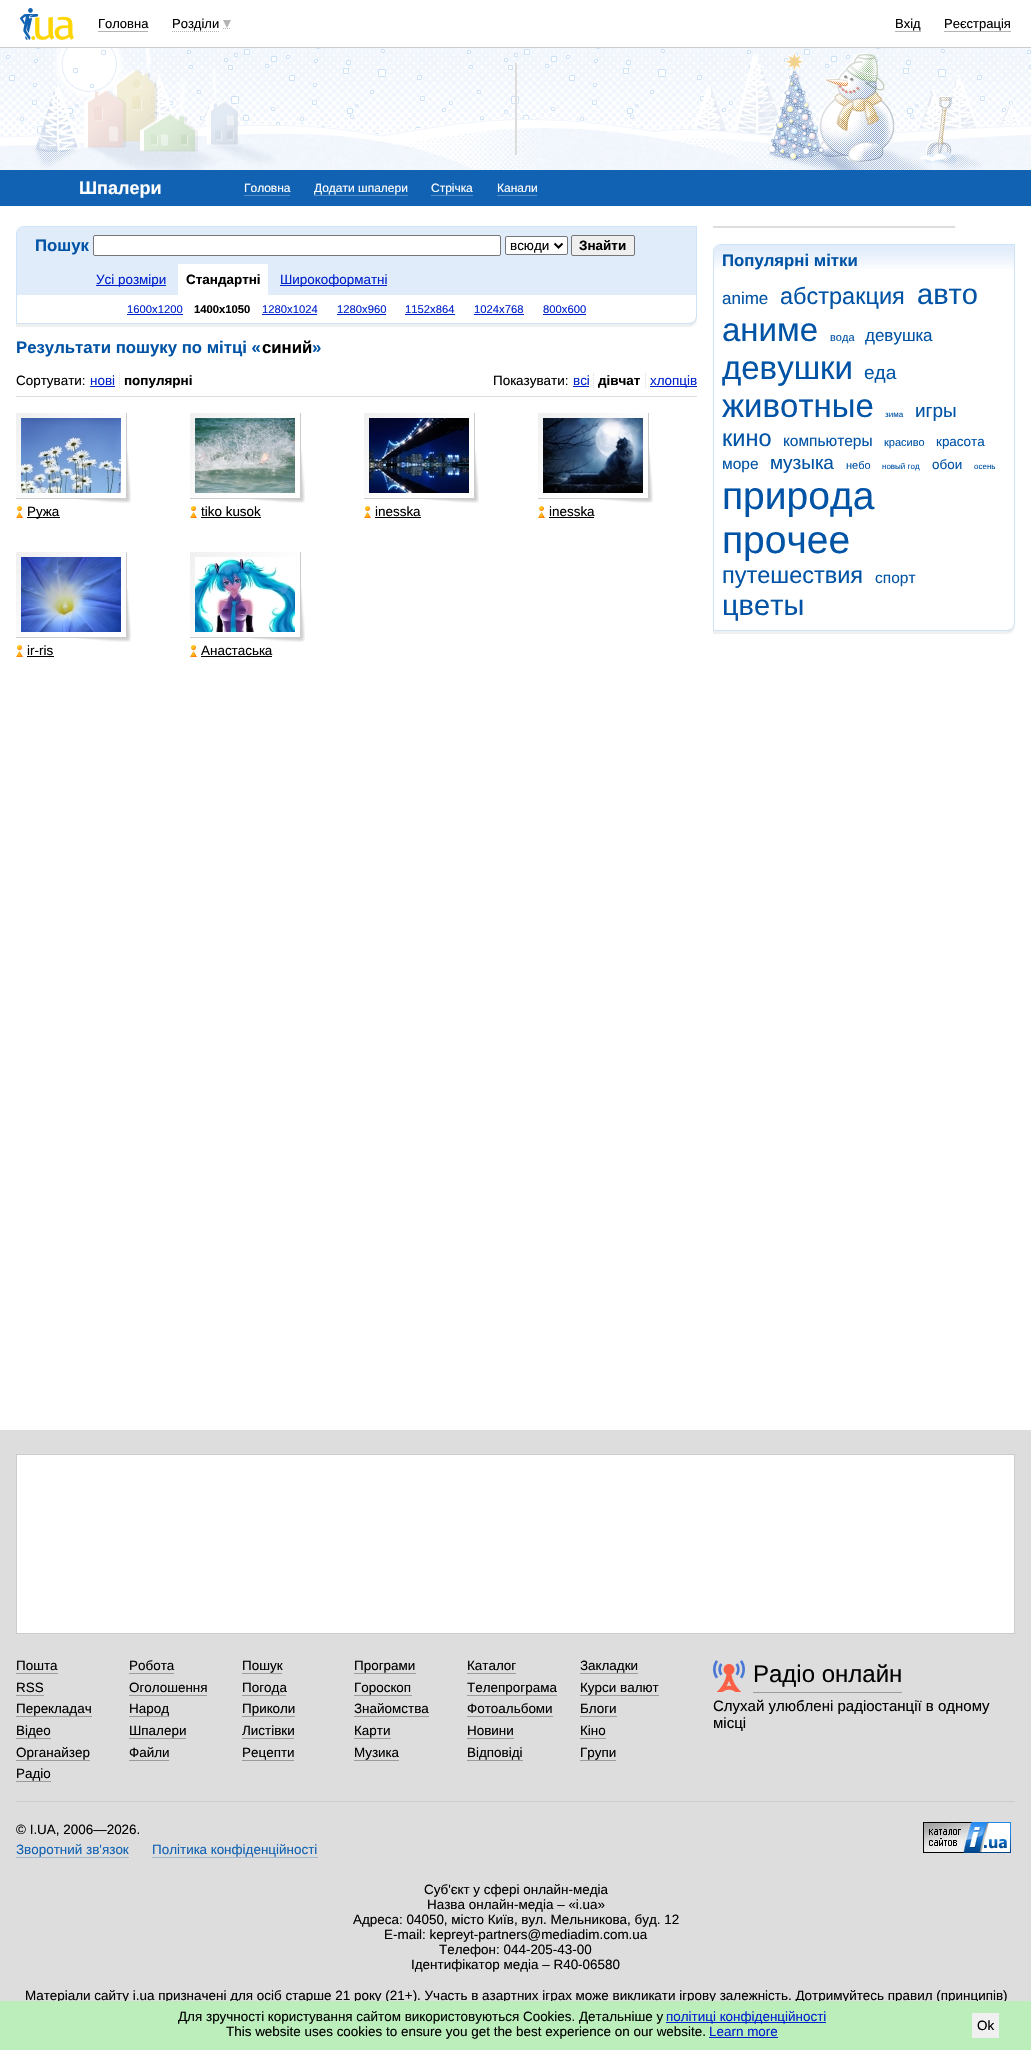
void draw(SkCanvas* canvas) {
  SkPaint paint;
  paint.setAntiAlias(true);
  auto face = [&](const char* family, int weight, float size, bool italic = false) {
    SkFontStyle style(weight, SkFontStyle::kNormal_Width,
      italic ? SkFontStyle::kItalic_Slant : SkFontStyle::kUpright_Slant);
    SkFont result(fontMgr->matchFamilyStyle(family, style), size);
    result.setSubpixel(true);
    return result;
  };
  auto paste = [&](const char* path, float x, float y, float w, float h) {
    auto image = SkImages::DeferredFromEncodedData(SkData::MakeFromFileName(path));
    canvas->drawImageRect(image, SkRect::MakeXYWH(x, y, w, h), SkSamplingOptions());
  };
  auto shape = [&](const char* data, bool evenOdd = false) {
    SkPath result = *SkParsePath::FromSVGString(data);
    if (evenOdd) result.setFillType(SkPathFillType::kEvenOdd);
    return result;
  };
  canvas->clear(0xffffffff);
  paint.setColor(0xffcccccc);
  canvas->drawRect(SkRect::MakeXYWH(0, 47, 1031, 1), paint);
  paste("img/1.png", 20, 8, 54, 32);
  paint.setColor(0xffb3b3b3);
  canvas->drawRect(SkRect::MakeXYWH(98, 31, 50, 1), paint);
  paint.setStroke(true);
  paint.setStrokeWidth(1);
  paint.setPathEffect(SkDashPathEffect::Make({{1, 1}}, 0));
  canvas->drawPath(shape("M172 31.5H219M223 28.5H231"), paint);
  paint.setPathEffect(nullptr);
  paint.setStroke(false);
  canvas->drawPath(shape("M223 20H231L227 28Z"), paint);
  canvas->drawRect(SkRect::MakeXYWH(895, 31, 26, 1), paint);
  canvas->drawRect(SkRect::MakeXYWH(944, 31, 67, 1), paint);
  paste("img/2.png", 0, 48, 1031, 122);
  {
    const struct { float x, y, w, h; SkColor color; } items[] = {
      {515, 63, 2, 92, 0xffdddddd},
      {0, 170, 1031, 36, 0xff1162b3},
      {244, 195, 46, 1, 0xff5891ca},
      {314, 195, 94, 1, 0xff5891ca},
      {431, 195, 42, 1, 0xff5891ca},
      {497, 195, 40, 1, 0xff5891ca},
      {16, 324, 681, 3, 0xfff0f0f0},
      {17, 227, 679, 68, 0xffe1ecfa},
    };
    for (auto [x, y, w, h, color] : items) {
      paint.setColor(color);
      canvas->drawRect(SkRect::MakeXYWH(x, y, w, h), paint);
    }
  }
  paint.setStroke(true);
  paint.setColor(0xffcee3f7);
  canvas->drawRect(SkRect::MakeXYWH(16.5f, 226.5f, 680, 97), paint);
  paste("img/3.png", 16, 226, 7, 7);
  paint.setStroke(false);
  paint.setColor(0xffffffff);
  canvas->drawRoundRect(SkRect::MakeXYWH(93.5f, 235.5f, 407, 20), 1.5f, 1.5f, paint);
  paint.setStroke(true);
  paint.setColor(0xff767676);
  canvas->drawRoundRect(SkRect::MakeXYWH(93.5f, 235.5f, 407, 20), 1.5f, 1.5f, paint);
  paint.setStroke(false);
  paint.setColor(0xffffffff);
  canvas->drawRoundRect(SkRect::MakeXYWH(505.5f, 236.5f, 62, 18), 1.5f, 1.5f, paint);
  paint.setStroke(true);
  paint.setColor(0xff767676);
  canvas->drawRoundRect(SkRect::MakeXYWH(505.5f, 236.5f, 62, 18), 1.5f, 1.5f, paint);
  paint.setStrokeWidth(2);
  paint.setColor(0xff000000);
  canvas->drawPath(shape("M554.5 243.5L558.5 247.5L562.5 243.5"), paint);
  paint.setStroke(false);
  paint.setColor(0xffefefef);
  canvas->drawRoundRect(SkRect::MakeXYWH(571.5f, 235.5f, 63, 20), 1.5f, 1.5f, paint);
  paint.setStroke(true);
  paint.setStrokeWidth(1);
  paint.setColor(0xff767676);
  canvas->drawRoundRect(SkRect::MakeXYWH(571.5f, 235.5f, 63, 20), 1.5f, 1.5f, paint);
  paint.setStroke(false);
  {
    const struct { float x, y, w, h; SkColor color; } items[] = {
      {96, 285, 70, 1, 0xff0022cc},
      {178, 264, 90, 31, 0xffffffff},
      {280, 285, 107, 1, 0xff0022cc},
      {127, 314, 56, 1, 0xff0022cc},
      {262, 314, 55, 1, 0xff0022cc},
      {337, 314, 49, 1, 0xff0022cc},
      {405, 314, 50, 1, 0xff0022cc},
      {474, 314, 50, 1, 0xff0022cc},
      {543, 314, 43, 1, 0xff0022cc},
    };
    for (auto [x, y, w, h, color] : items) {
      paint.setColor(color);
      canvas->drawRect(SkRect::MakeXYWH(x, y, w, h), paint);
    }
  }
  paste("img/4.png", 689, 317, 8, 10);
  paint.setStroke(true);
  paint.setColor(0xffdddddd);
  paint.setPathEffect(SkDashPathEffect::Make({{1, 1}}, 0));
  canvas->drawPath(shape("M119.5 373V388"), paint);
  paint.setPathEffect(nullptr);
  paint.setStroke(false);
  paint.setColor(0xff0022cc);
  canvas->drawRect(SkRect::MakeXYWH(90, 386, 25, 1), paint);
  paint.setStroke(true);
  paint.setColor(0xffdddddd);
  paint.setPathEffect(SkDashPathEffect::Make({{1, 1}}, 0));
  canvas->drawPath(shape("M593.5 373V388"), paint);
  paint.setPathEffect(nullptr);
  paint.setStroke(false);
  paint.setColor(0xff0022cc);
  canvas->drawRect(SkRect::MakeXYWH(573, 386, 16, 1), paint);
  paint.setStroke(true);
  paint.setColor(0xffdddddd);
  paint.setPathEffect(SkDashPathEffect::Make({{1, 1}}, 0));
  canvas->drawPath(shape("M645.5 373V388"), paint);
  paint.setPathEffect(nullptr);
  paint.setStroke(false);
  paint.setColor(0xff0022cc);
  canvas->drawRect(SkRect::MakeXYWH(650, 386, 47, 1), paint);
  paint.setColor(0xffdddddd);
  canvas->drawRect(SkRect::MakeXYWH(16, 396, 681, 1), paint);
  paste("img/5.png", 16, 413, 115, 90);
  paste("img/6.png", 21, 418, 100, 75);
  paste("img/7.png", 16, 506, 7, 12);
  paint.setColor(0xff000000);
  canvas->drawRect(SkRect::MakeXYWH(27, 517, 33, 1), paint);
  paste("img/5.png", 190, 413, 115, 90);
  paste("img/8.png", 195, 418, 100, 75);
  paste("img/7.png", 190, 506, 7, 12);
  canvas->drawRect(SkRect::MakeXYWH(201, 517, 60, 1), paint);
  paste("img/5.png", 364, 413, 115, 90);
  paste("img/9.png", 369, 418, 100, 75);
  paste("img/7.png", 364, 506, 7, 12);
  canvas->drawRect(SkRect::MakeXYWH(375, 517, 46, 1), paint);
  paste("img/5.png", 538, 413, 115, 90);
  paste("img/10.png", 543, 418, 100, 75);
  paste("img/7.png", 538, 506, 7, 12);
  canvas->drawRect(SkRect::MakeXYWH(549, 517, 45, 1), paint);
  paste("img/5.png", 16, 552, 115, 90);
  paste("img/11.png", 21, 557, 100, 75);
  paste("img/7.png", 16, 645, 7, 12);
  canvas->drawRect(SkRect::MakeXYWH(27, 656, 27, 1), paint);
  paste("img/5.png", 190, 552, 115, 90);
  paste("img/12.png", 195, 557, 100, 75);
  paste("img/7.png", 190, 645, 7, 12);
  {
    const struct { float x, y, w, h; SkColor color; } items[] = {
      {201, 656, 71, 1, 0xff000000},
      {713, 226, 242, 2, 0xffdddddd},
      {713, 631, 302, 3, 0xfff0f0f0},
    };
    for (auto [x, y, w, h, color] : items) {
      paint.setColor(color);
      canvas->drawRect(SkRect::MakeXYWH(x, y, w, h), paint);
    }
  }
  paste("img/14.png", 714, 245, 300, 24);
  paint.setStroke(true);
  paint.setColor(0xffcee3f7);
  canvas->drawRect(SkRect::MakeXYWH(713.5f, 244.5f, 301, 386), paint);
  paste("img/13.png", 713, 244, 7, 7);
  paste("img/4.png", 1007, 624, 8, 10);
  paint.setStroke(false);
  paint.setColor(0xffdddddd);
  canvas->drawRect(SkRect::MakeXYWH(0, 1430, 1031, 571), paint);
  paint.setColor(0xffffffff);
  canvas->drawRect(SkRect::MakeXYWH(16.5f, 1454.5f, 998, 179), paint);
  paint.setStroke(true);
  paint.setColor(0xffcccccc);
  canvas->drawRect(SkRect::MakeXYWH(16.5f, 1454.5f, 998, 179), paint);
  paint.setStroke(false);
  {
    const struct { float x, y, w, h; SkColor color; } items[] = {
      {16, 1673, 42, 1, 0xff9b9b9b},
      {129, 1673, 45, 1, 0xff9b9b9b},
      {242, 1673, 40, 1, 0xff9b9b9b},
      {354, 1673, 62, 1, 0xff9b9b9b},
      {467, 1673, 49, 1, 0xff9b9b9b},
      {580, 1673, 58, 1, 0xff9b9b9b},
      {16, 1695, 28, 1, 0xff9b9b9b},
      {129, 1695, 78, 1, 0xff9b9b9b},
      {242, 1695, 44, 1, 0xff9b9b9b},
      {354, 1695, 58, 1, 0xff9b9b9b},
      {467, 1695, 90, 1, 0xff9b9b9b},
      {580, 1695, 79, 1, 0xff9b9b9b},
      {16, 1716, 76, 1, 0xff9b9b9b},
      {129, 1716, 40, 1, 0xff9b9b9b},
      {242, 1716, 53, 1, 0xff9b9b9b},
      {354, 1716, 75, 1, 0xff9b9b9b},
      {467, 1716, 86, 1, 0xff9b9b9b},
      {580, 1716, 37, 1, 0xff9b9b9b},
      {16, 1738, 35, 1, 0xff9b9b9b},
      {129, 1738, 57, 1, 0xff9b9b9b},
      {242, 1738, 52, 1, 0xff9b9b9b},
      {354, 1738, 37, 1, 0xff9b9b9b},
      {467, 1738, 47, 1, 0xff9b9b9b},
      {580, 1738, 26, 1, 0xff9b9b9b},
      {16, 1760, 74, 1, 0xff9b9b9b},
      {129, 1760, 40, 1, 0xff9b9b9b},
      {242, 1760, 52, 1, 0xff9b9b9b},
      {354, 1760, 45, 1, 0xff9b9b9b},
      {467, 1760, 56, 1, 0xff9b9b9b},
      {580, 1760, 36, 1, 0xff9b9b9b},
      {16, 1781, 35, 1, 0xff9b9b9b},
      {753, 1692, 149, 1, 0xff9b9b9b},
    };
    for (auto [x, y, w, h, color] : items) {
      paint.setColor(color);
      canvas->drawRect(SkRect::MakeXYWH(x, y, w, h), paint);
    }
  }
  paste("img/15.png", 713, 1660, 32, 32);
  paint.setColor(0xffcccccc);
  canvas->drawRect(SkRect::MakeXYWH(16, 1801, 999, 1), paint);
  paste("img/16.png", 923, 1822, 88, 31);
  paint.setColor(0xffa0b8d0);
  canvas->drawRect(SkRect::MakeXYWH(16, 1857, 113, 1), paint);
  canvas->drawRect(SkRect::MakeXYWH(152, 1857, 166, 1), paint);
  auto f0 = face("Liberation Sans", 400, 13);
  paint.setColor(0xff000000);
  {
    const struct { const char* s; float x, y; } items[] = {
      {"Головна", 98, 28},
      {"Розділи", 172, 28},
      {"Вхід", 895, 28},
      {"Реєстрація", 944, 28},
    };
    for (auto [s, x, y] : items) {
      canvas->drawString(s, x, y, f0, paint);
    }
  }
  auto f1 = face("Liberation Sans", 700, 18);
  paint.setColor(0xffffffff);
  canvas->drawString("Шпалери", 79, 194, f1, paint);
  auto f2 = face("Liberation Sans", 400, 12);
  {
    const struct { const char* s; float x, y; } items[] = {
      {"Головна", 244, 192},
      {"Додати шпалери", 314, 192},
      {"Стрічка", 431, 192},
      {"Канали", 497, 192},
    };
    for (auto [s, x, y] : items) {
      canvas->drawString(s, x, y, f2, paint);
    }
  }
  auto f3 = face("Liberation Sans", 700, 16.75f);
  paint.setColor(0xff0053a5);
  canvas->drawString("Пошук", 35, 251, f3, paint);
  auto f4 = face("Liberation Sans", 400, 13.45f);
  paint.setColor(0xff000000);
  canvas->drawString("всюди", 510, 250, f4, paint);
  auto f5 = face("Liberation Sans", 700, 13.45f);
  canvas->drawString("Знайти", 579, 250, f5, paint);
  paint.setColor(0xff0022cc);
  canvas->drawString("Усі розміри", 96, 284, f4, paint);
  paint.setColor(0xff000000);
  canvas->drawString("Стандартні", 186, 284, f5, paint);
  paint.setColor(0xff0022cc);
  canvas->drawString("Широкоформатні", 280, 284, f4, paint);
  auto f6 = face("Liberation Sans", 400, 11.25f);
  canvas->drawString("1600x1200", 127, 313, f6, paint);
  auto f7 = face("Liberation Sans", 700, 11.25f);
  paint.setColor(0xff000000);
  canvas->drawString("1400x1050", 194, 313, f7, paint);
  paint.setColor(0xff0022cc);
  {
    const struct { const char* s; float x, y; } items[] = {
      {"1280x1024", 262, 313},
      {"1280x960", 337, 313},
      {"1152x864", 405, 313},
      {"1024x768", 474, 313},
      {"800x600", 543, 313},
    };
    for (auto [s, x, y] : items) {
      canvas->drawString(s, x, y, f6, paint);
    }
  }
  paint.setColor(0xff0053a5);
  canvas->drawString("Результати пошуку по мітці «", 16, 353, f3, paint);
  paint.setColor(0xff000000);
  canvas->drawString("синий", 262, 353, f3, paint);
  paint.setColor(0xff0053a5);
  canvas->drawString("»", 312, 353, f3, paint);
  paint.setColor(0xff000000);
  canvas->drawString("Сортувати:", 16, 385, f4, paint);
  paint.setColor(0xff0022cc);
  canvas->drawString("нові", 90, 385, f4, paint);
  paint.setColor(0xff000000);
  canvas->drawString("популярні", 124, 385, f5, paint);
  canvas->drawString("Показувати:", 493, 385, f4, paint);
  paint.setColor(0xff0022cc);
  canvas->drawString("всі", 573, 385, f4, paint);
  paint.setColor(0xff000000);
  canvas->drawString("дівчат", 598, 385, f5, paint);
  paint.setColor(0xff0022cc);
  canvas->drawString("хлопців", 650, 385, f4, paint);
  paint.setColor(0xff000000);
  {
    const struct { const char* s; float x, y; } items[] = {
      {"Ружа", 27, 516},
      {"tiko kusok", 201, 516},
      {"inesska", 375, 516},
      {"inesska", 549, 516},
      {"ir-ris", 27, 655},
      {"Анастаська", 201, 655},
    };
    for (auto [s, x, y] : items) {
      canvas->drawString(s, x, y, f4, paint);
    }
  }
  paint.setColor(0xff0053a5);
  canvas->drawString("Популярні мітки", 722, 266, f3, paint);
  auto f8 = face("Liberation Sans", 400, 17);
  canvas->drawString("anime", 722, 304, f8, paint);
  auto f9 = face("Liberation Sans", 400, 23.5f);
  canvas->drawString("абстракция", 780, 304, f9, paint);
  auto f10 = face("Liberation Sans", 400, 29);
  canvas->drawString("авто", 917, 304, f10, paint);
  auto f11 = face("Liberation Sans", 400, 33);
  canvas->drawString("аниме", 722, 341, f11, paint);
  auto f12 = face("Liberation Sans", 400, 11);
  canvas->drawString("вода", 830, 341, f12, paint);
  canvas->drawString("девушка", 865, 341, f8, paint);
  canvas->drawString("девушки", 722, 379, f11, paint);
  auto f13 = face("Liberation Sans", 400, 19);
  canvas->drawString("еда", 864, 379, f13, paint);
  canvas->drawString("животные", 722, 417, f11, paint);
  auto f14 = face("Liberation Sans", 400, 8);
  canvas->drawString("зима", 885, 417, f14, paint);
  canvas->drawString("игры", 915, 417, f13, paint);
  canvas->drawString("кино", 722, 446, f9, paint);
  auto f15 = face("Liberation Sans", 400, 15.5f);
  canvas->drawString("компьютеры", 783, 446, f15, paint);
  canvas->drawString("красиво", 884, 446, f12, paint);
  canvas->drawString("красота", 936, 446, f4, paint);
  canvas->drawString("море", 722, 469, f15, paint);
  canvas->drawString("музыка", 770, 469, f13, paint);
  canvas->drawString("небо", 846, 469, f12, paint);
  canvas->drawString("новый год", 882, 469, f14, paint);
  canvas->drawString("обои", 932, 469, f4, paint);
  canvas->drawString("осень", 974, 469, f14, paint);
  auto f16 = face("Liberation Sans", 400, 39);
  canvas->drawString("природа", 722, 509, f16, paint);
  canvas->drawString("прочее", 722, 553, f16, paint);
  canvas->drawString("путешествия", 722, 583, f9, paint);
  canvas->drawString("спорт", 875, 583, f15, paint);
  canvas->drawString("цветы", 722, 615, f10, paint);
  paint.setColor(0xff000000);
  {
    const struct { const char* s; float x, y; } items[] = {
      {"Пошта", 16, 1670},
      {"Робота", 129, 1670},
      {"Пошук", 242, 1670},
      {"Програми", 354, 1670},
      {"Каталог", 467, 1670},
      {"Закладки", 580, 1670},
      {"RSS", 16, 1692},
      {"Оголошення", 129, 1692},
      {"Погода", 242, 1692},
      {"Гороскоп", 354, 1692},
      {"Телепрограма", 467, 1692},
      {"Курси валют", 580, 1692},
      {"Перекладач", 16, 1713},
      {"Народ", 129, 1713},
      {"Приколи", 242, 1713},
      {"Знайомства", 354, 1713},
      {"Фотоальбоми", 467, 1713},
      {"Блоги", 580, 1713},
      {"Відео", 16, 1735},
      {"Шпалери", 129, 1735},
      {"Листівки", 242, 1735},
      {"Карти", 354, 1735},
      {"Новини", 467, 1735},
      {"Кіно", 580, 1735},
      {"Органайзер", 16, 1757},
      {"Файли", 129, 1757},
      {"Рецепти", 242, 1757},
      {"Музика", 354, 1757},
      {"Відповіді", 467, 1757},
      {"Групи", 580, 1757},
      {"Радіо", 16, 1778},
    };
    for (auto [s, x, y] : items) {
      canvas->drawString(s, x, y, f4, paint);
    }
  }
  auto f17 = face("Liberation Sans", 400, 24);
  canvas->drawString("Радіо онлайн", 753, 1682, f17, paint);
  auto f18 = face("Liberation Sans", 400, 15);
  canvas->drawString("Слухай улюблені радіостанції в одному", 713, 1711, f18, paint);
  canvas->drawString("місці", 713, 1728, f18, paint);
  canvas->drawString("© I.UA, 2006—2026.", 16, 1834, f4, paint);
  paint.setColor(0xff1162b3);
  canvas->drawString("Зворотний зв'язок", 16, 1854, f4, paint);
  canvas->drawString("Політика конфіденційності", 152, 1854, f4, paint);
  paint.setColor(0xff000000);
  {
    const struct { const char* s; float x, y; } items[] = {
      {"Суб'єкт у сфері онлайн-медіа", 424, 1894},
      {"Назва онлайн-медіа – «i.ua»", 427, 1909},
      {"Адреса: 04050, місто Київ, вул. Мельникова, буд. 12", 353, 1924},
      {"E-mail: kepreyt-partners@mediadim.com.ua", 384, 1939},
      {"Телефон: 044-205-43-00", 439, 1954},
      {"Ідентифікатор медіа – R40-06580", 411, 1969},
      {"Матеріали сайту i.ua призначені для осіб старше 21 року (21+). Участь в азартних іграх може викликати ігрову залежність. Дотримуйтесь правил (принципів)", 25, 2000},
    };
    for (auto [s, x, y] : items) {
      canvas->drawString(s, x, y, f4, paint);
    }
  }
  paint.setColor(0xffbbeebb);
  canvas->drawRect(SkRect::MakeXYWH(0, 2001, 1031, 49), paint);
  paint.setColor(0xff000000);
  canvas->drawString("Для зручності користування сайтом використовуються Cookies. Детальніше у", 178, 2021, f4, paint);
  paint.setColor(0xff0022cc);
  canvas->drawRect(SkRect::MakeXYWH(666, 2022, 160, 1), paint);
  canvas->drawString("політиці конфіденційності", 666, 2021, f4, paint);
  paint.setColor(0xff000000);
  canvas->drawString("This website uses cookies to ensure you get the best experience on our website.", 226, 2036, f4, paint);
  paint.setColor(0xff0022cc);
  canvas->drawString("Learn more", 709, 2036, f4, paint);
  canvas->drawRect(SkRect::MakeXYWH(709, 2037, 69, 1), paint);
  paint.setColor(0xfff0f0f0);
  canvas->drawRect(SkRect::MakeXYWH(972, 2013, 27, 25), paint);
  paint.setColor(0xff000000);
  canvas->drawString("Ok", 977, 2030, f4, paint);
}
